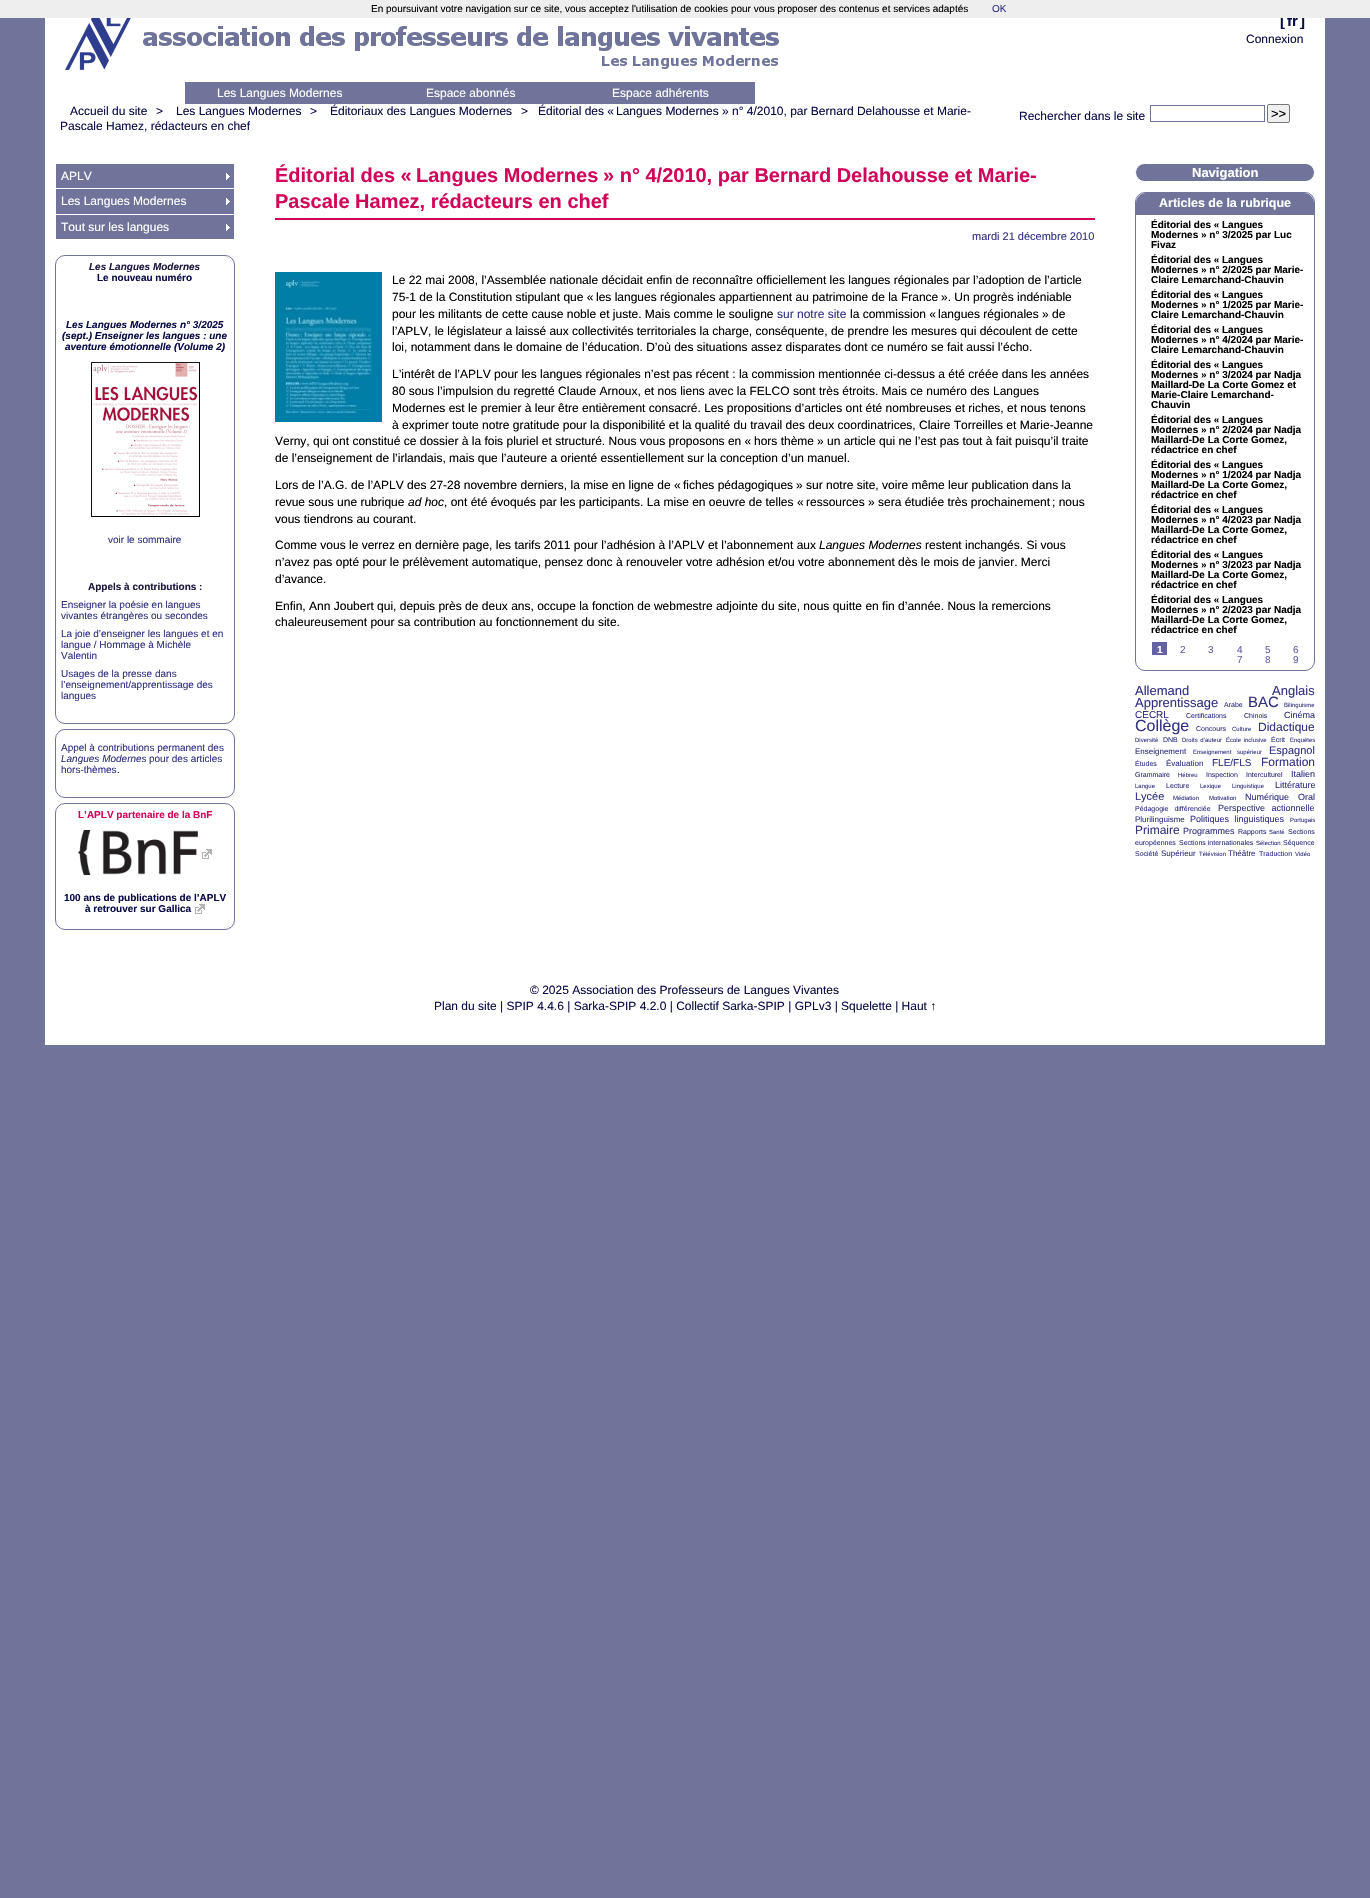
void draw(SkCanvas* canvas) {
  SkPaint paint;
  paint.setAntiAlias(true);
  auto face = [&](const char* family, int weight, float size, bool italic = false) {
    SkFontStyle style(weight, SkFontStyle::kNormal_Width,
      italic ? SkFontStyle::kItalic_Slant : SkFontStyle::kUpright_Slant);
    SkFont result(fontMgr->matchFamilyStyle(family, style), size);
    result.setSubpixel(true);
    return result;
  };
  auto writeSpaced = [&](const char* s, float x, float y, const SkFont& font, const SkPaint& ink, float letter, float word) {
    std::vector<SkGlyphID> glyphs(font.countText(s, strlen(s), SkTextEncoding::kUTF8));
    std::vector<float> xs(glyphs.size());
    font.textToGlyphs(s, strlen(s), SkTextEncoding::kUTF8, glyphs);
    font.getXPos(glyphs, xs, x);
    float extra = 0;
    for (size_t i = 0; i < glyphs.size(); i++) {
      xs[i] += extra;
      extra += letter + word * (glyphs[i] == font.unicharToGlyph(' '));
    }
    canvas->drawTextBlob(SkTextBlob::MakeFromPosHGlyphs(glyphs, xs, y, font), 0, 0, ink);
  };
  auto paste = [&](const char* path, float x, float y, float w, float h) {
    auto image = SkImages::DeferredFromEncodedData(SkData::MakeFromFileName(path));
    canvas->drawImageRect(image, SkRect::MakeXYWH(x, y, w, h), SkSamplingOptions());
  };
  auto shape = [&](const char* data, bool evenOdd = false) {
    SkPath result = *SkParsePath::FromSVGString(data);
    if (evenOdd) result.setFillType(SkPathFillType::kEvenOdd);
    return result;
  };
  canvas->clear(0xff70749a);
  paint.setColor(0xffffffff);
  canvas->drawRect(SkRect::MakeXYWH(45, 18, 1280, 1027), paint);
  paste("img/1.png", 143, 26, 636, 43);
  paste("img/2.png", 65, 18, 66, 52);
  paint.setColor(0xff70749a);
  canvas->drawRect(SkRect::MakeXYWH(185, 82, 570, 22), paint);
  paint.setStroke(true);
  paint.setStrokeWidth(1);
  canvas->drawRect(SkRect::MakeXYWH(1150.5f, 105.5f, 114, 16), paint);
  paint.setStroke(false);
  paint.setColor(0xffefefef);
  canvas->drawRoundRect(SkRect::MakeXYWH(1267.5f, 104.5f, 22, 18), 1.5f, 1.5f, paint);
  paint.setStroke(true);
  paint.setColor(0xff767676);
  canvas->drawRoundRect(SkRect::MakeXYWH(1267.5f, 104.5f, 22, 18), 1.5f, 1.5f, paint);
  paint.setStroke(false);
  paint.setColor(0xff70749a);
  canvas->drawRect(SkRect::MakeXYWH(56, 164, 178, 24), paint);
  paste("img/3.png", 226, 173, 4, 7);
  canvas->drawRect(SkRect::MakeXYWH(56, 189, 178, 25), paint);
  paste("img/3.png", 226, 198, 4, 7);
  canvas->drawRect(SkRect::MakeXYWH(56, 215, 178, 24), paint);
  paste("img/3.png", 226, 224, 4, 7);
  paint.setStroke(true);
  canvas->drawRoundRect(SkRect::MakeXYWH(55.5f, 255.5f, 179, 468), 9.5f, 9.5f, paint);
  paste("img/4.png", 91, 362, 109, 155);
  canvas->drawRoundRect(SkRect::MakeXYWH(55.5f, 729.5f, 179, 68), 9.5f, 9.5f, paint);
  canvas->drawRoundRect(SkRect::MakeXYWH(55.5f, 803.5f, 179, 126), 9.5f, 9.5f, paint);
  paste("img/5.png", 202, 849, 10, 10);
  paste("img/6.png", 78, 830, 120, 45);
  paste("img/5.png", 195, 904, 10, 10);
  paint.setStroke(false);
  paint.setColor(0xffd1065a);
  canvas->drawRect(SkRect::MakeXYWH(275, 218, 820, 2), paint);
  paste("img/7.png", 275, 272, 107, 150);
  paint.setColor(0xff70749a);
  canvas->drawRoundRect(SkRect::MakeXYWH(1135.5f, 163.5f, 179, 18), 9, 9, paint);
  paint.setStroke(true);
  paint.setColor(0xffffffff);
  canvas->drawRoundRect(SkRect::MakeXYWH(1135.5f, 163.5f, 179, 18), 9, 9, paint);
  paint.setColor(0xff70749a);
  canvas->drawRoundRect(SkRect::MakeXYWH(1135.5f, 192.5f, 179, 478), 9.5f, 9.5f, paint);
  paint.setStroke(false);
  canvas->drawPath(shape("M1146 193H1304C1309.5 193 1314 197.5 1314 203V215H1136V203C1136 197.5 1140.5 193 1146 193Z"), paint);
  paint.setColor(0xff6262a4);
  canvas->drawRect(SkRect::MakeXYWH(1152, 642, 15, 13), paint);
  auto f0 = face("Liberation Sans", 700, 15);
  paint.setColor(0xff0a0b49);
  {
    const struct { const char* s; float x, y; } items[] = {
      {"[", 1280, 26},
      {"fr", 1287, 26},
      {"]", 1300, 26},
    };
    for (auto [s, x, y] : items) {
      canvas->drawString(s, x, y, f0, paint);
    }
  }
  paint.setColor(0xffeeeeee);
  canvas->drawRect(SkRect::MakeXYWH(0, 0, 1370, 18), paint);
  auto f1 = face("Liberation Sans", 400, 10);
  paint.setColor(0xff323284);
  canvas->drawString("OK", 992, 12, f1, paint);
  paint.setColor(0xff000000);
  canvas->drawString("En poursuivant votre navigation sur ce site, vous acceptez l'utilisation de cookies pour vous proposer des contenus et services adaptés", 371, 12, f1, paint);
  auto f2 = face("Liberation Sans", 400, 12);
  paint.setColor(0xff0a0b49);
  canvas->drawString("Connexion", 1246, 43, f2, paint);
  paint.setColor(0xffffffff);
  {
    const struct { const char* s; float x, y; } items[] = {
      {"Les Langues Modernes", 217, 97},
      {"Espace abonnés", 426, 97},
      {"Espace adhérents", 612, 97},
    };
    for (auto [s, x, y] : items) {
      canvas->drawString(s, x, y, f2, paint);
    }
  }
  paint.setColor(0xff0a0b49);
  {
    const struct { const char* s; float x, y; } items[] = {
      {"Accueil du site", 70, 115},
      {">", 156, 115},
      {"Les Langues Modernes", 176, 115},
      {">", 310, 115},
      {"Éditoriaux des Langues Modernes", 330, 115},
      {">", 521, 115},
      {"Éditorial des «", 538, 115},
      {"Langues Modernes", 616, 115},
      {"» n° 4/2010, par Bernard Delahousse et Marie-", 722, 115},
      {"Pascale Hamez, rédacteurs en chef", 60, 130},
      {"Rechercher dans le site", 1019, 120},
    };
    for (auto [s, x, y] : items) {
      canvas->drawString(s, x, y, f2, paint);
    }
  }
  auto f3 = face("Liberation Sans", 400, 13);
  paint.setColor(0xff000000);
  canvas->drawString(">>", 1271, 118, f3, paint);
  paint.setColor(0xffffffff);
  {
    const struct { const char* s; float x, y; } items[] = {
      {"APLV", 61, 180},
      {"Les Langues Modernes", 61, 205},
      {"Tout sur les langues", 61, 231},
    };
    for (auto [s, x, y] : items) {
      canvas->drawString(s, x, y, f2, paint);
    }
  }
  auto f4 = face("Liberation Sans", 700, 10, true);
  paint.setColor(0xff1e1741);
  canvas->drawString("Les Langues Modernes", 89, 270, f4, paint);
  auto f5 = face("Liberation Sans", 700, 10);
  paint.setColor(0xff0a0b49);
  canvas->drawString("Le nouveau numéro", 97, 281, f5, paint);
  {
    const struct { const char* s; float x, y; } items[] = {
      {"Les Langues Modernes n° 3/2025", 66, 328},
      {"(sept.) Enseigner les langues : une", 62, 339},
      {"aventure émotionnelle (Volume 2)", 65, 350},
    };
    for (auto [s, x, y] : items) {
      canvas->drawString(s, x, y, f4, paint);
    }
  }
  paint.setColor(0xff323284);
  canvas->drawString("voir le sommaire", 108, 543, f1, paint);
  paint.setColor(0xff1e1741);
  canvas->drawString("Appels à contributions :", 88, 590, f5, paint);
  paint.setColor(0xff323284);
  {
    const struct { const char* s; float x, y; } items[] = {
      {"Enseigner la poésie en langues", 61, 608},
      {"vivantes étrangères ou secondes", 61, 619},
      {"La joie d’enseigner les langues et en", 61, 637},
      {"langue / Hommage à Michèle", 61, 648},
      {"Valentin", 61, 659},
      {"Usages de la presse dans", 61, 677},
      {"l’enseignement/apprentissage des", 61, 688},
      {"langues", 61, 699},
      {"Appel à contributions permanent des", 61, 751},
    };
    for (auto [s, x, y] : items) {
      canvas->drawString(s, x, y, f1, paint);
    }
  }
  auto f6 = face("Liberation Sans", 400, 10, true);
  canvas->drawString("Langues Modernes", 61, 762, f6, paint);
  canvas->drawString("pour des articles", 149, 762, f1, paint);
  canvas->drawString("hors-thèmes", 61, 773, f1, paint);
  paint.setColor(0xff000000);
  canvas->drawString(".", 117, 773, f1, paint);
  paint.setColor(0xffd1065a);
  canvas->drawString("L’APLV partenaire de la BnF", 78, 818, f5, paint);
  paint.setColor(0xff0a0b49);
  canvas->drawString("100 ans de publications de l’APLV", 64, 901, f5, paint);
  canvas->drawString("à retrouver sur Gallica", 85, 912, f5, paint);
  auto f7 = face("Liberation Sans", 700, 20);
  paint.setColor(0xffd1065a);
  {
    const struct { const char* s; float x, y; } items[] = {
      {"Éditorial des «", 275, 182},
      {"Langues Modernes", 416, 182},
      {"» n° 4/2010, par Bernard Delahousse et Marie-", 603, 182},
      {"Pascale Hamez, rédacteurs en chef", 275, 208},
    };
    for (auto [s, x, y] : items) {
      canvas->drawString(s, x, y, f7, paint);
    }
  }
  auto f8 = face("Liberation Sans", 400, 11);
  paint.setColor(0xff323284);
  canvas->drawString("mardi 21 décembre 2010", 972, 240, f8, paint);
  paint.setColor(0xff000000);
  {
    const struct { const char* s; float x, y; } items[] = {
      {"Le 22 mai 2008, l’Assemblée nationale décidait enfin de reconnaître officiellement les langues régionales par l’adoption de l’article", 392, 284},
      {"75-1 de la Constitution stipulant que «", 392, 301},
      {"les langues régionales appartiennent au patrimoine de la France", 596, 301},
      {"». Un progrès indéniable", 941, 301},
      {"pour les militants de cette cause noble et juste. Mais comme le souligne", 392, 318},
    };
    for (auto [s, x, y] : items) {
      canvas->drawString(s, x, y, f2, paint);
    }
  }
  paint.setColor(0xff323284);
  canvas->drawString("sur notre site", 777, 318, f2, paint);
  paint.setColor(0xff000000);
  {
    const struct { const char* s; float x, y; } items[] = {
      {"la commission «", 850, 318},
      {"langues régionales", 938, 318},
      {"» de", 1042, 318},
      {"l’APLV, le législateur a laissé aux collectivités territoriales la charge, conséquente, de prendre les mesures qui découlent de cette", 392, 335},
      {"loi, notamment dans le domaine de l’éducation. D’où des situations assez disparates dont ce numéro se fait aussi l’écho.", 392, 351},
      {"L’intérêt de l’APLV pour les langues régionales n’est pas récent : la commission mentionnée ci-dessus a été créée dans les années", 392, 378},
      {"80 sous l’impulsion du regretté Claude Arnoux, et nos liens avec la FELCO sont très étroits. Mais ce numéro des Langues", 392, 395},
      {"Modernes est le premier à leur être entièrement consacré. Les propositions d’articles ont été nombreuses et riches, et nous tenons", 392, 412},
      {"à exprimer toute notre gratitude pour la disponibilité et la qualité du travail des deux coordinatrices, Claire Torreilles et Marie-Jeanne", 392, 429},
      {"Verny, qui ont constitué ce dossier à la fois pluriel et structuré. Nous vous proposons en «", 275, 445},
      {"hors thème", 754, 445},
      {"» un article qui ne l’est pas tout à fait puisqu’il traite", 817, 445},
      {"de l’enseignement de l’irlandais, mais que l’auteure a orienté essentiellement sur la conception d’un manuel.", 275, 462},
      {"Lors de l’A.G. de l’APLV des 27-28 novembre derniers, la mise en ligne de «", 275, 489},
      {"fiches pédagogiques", 683, 489},
      {"» sur notre site, voire même leur publication dans la", 796, 489},
      {"revue sous une rubrique", 275, 506},
    };
    for (auto [s, x, y] : items) {
      canvas->drawString(s, x, y, f2, paint);
    }
  }
  auto f9 = face("Liberation Sans", 400, 12, true);
  canvas->drawString("ad hoc", 408, 506, f9, paint);
  {
    const struct { const char* s; float x, y; } items[] = {
      {", ont été évoqués par les participants. La mise en oeuvre de telles «", 444, 506},
      {"ressources", 806, 506},
      {"» sera étudiée très prochainement", 868, 506},
      {"; nous", 1052, 506},
      {"vous tiendrons au courant.", 275, 523},
      {"Comme vous le verrez en dernière page, les tarifs 2011 pour l’adhésion à l’APLV et l’abonnement aux", 275, 549},
    };
    for (auto [s, x, y] : items) {
      canvas->drawString(s, x, y, f2, paint);
    }
  }
  canvas->drawString("Langues Modernes", 819, 549, f9, paint);
  {
    const struct { const char* s; float x, y; } items[] = {
      {"restent inchangés. Si vous", 925, 549},
      {"n’avez pas opté pour le prélèvement automatique, pensez donc à renouveler votre adhésion et/ou votre abonnement dès le mois de janvier. Merci", 275, 566},
      {"d’avance.", 275, 583},
      {"Enfin, Ann Joubert qui, depuis près de deux ans, occupe la fonction de webmestre adjointe du site, nous quitte en fin d’année. Nous la remercions", 275, 610},
      {"chaleureusement pour sa contribution au fonctionnement du site.", 275, 626},
    };
    for (auto [s, x, y] : items) {
      canvas->drawString(s, x, y, f2, paint);
    }
  }
  auto f10 = face("Liberation Sans", 700, 13);
  paint.setColor(0xffffffff);
  canvas->drawString("Navigation", 1192, 177, f10, paint);
  auto f11 = face("Liberation Sans", 700, 12.5f);
  canvas->drawString("Articles de la rubrique", 1159, 207, f11, paint);
  paint.setColor(0xff000000);
  {
    const struct { const char* s; float x, y; } items[] = {
      {"Éditorial des «", 1151, 228},
      {"Langues", 1222, 228},
      {"Modernes", 1151, 238},
      {"» n° 3/2025 par Luc", 1201, 238},
      {"Fivaz", 1151, 248},
      {"Éditorial des «", 1151, 263},
      {"Langues", 1222, 263},
      {"Modernes", 1151, 273},
      {"» n° 2/2025 par Marie-", 1201, 273},
      {"Claire Lemarchand-Chauvin", 1151, 283},
      {"Éditorial des «", 1151, 298},
      {"Langues", 1222, 298},
      {"Modernes", 1151, 308},
      {"» n° 1/2025 par Marie-", 1201, 308},
      {"Claire Lemarchand-Chauvin", 1151, 318},
      {"Éditorial des «", 1151, 333},
      {"Langues", 1222, 333},
      {"Modernes", 1151, 343},
      {"» n° 4/2024 par Marie-", 1201, 343},
      {"Claire Lemarchand-Chauvin", 1151, 353},
      {"Éditorial des «", 1151, 368},
      {"Langues", 1222, 368},
      {"Modernes", 1151, 378},
      {"» n° 3/2024 par Nadja", 1201, 378},
      {"Maillard-De La Corte Gomez et", 1151, 388},
      {"Marie-Claire Lemarchand-", 1151, 398},
      {"Chauvin", 1151, 408},
      {"Éditorial des «", 1151, 423},
      {"Langues", 1222, 423},
      {"Modernes", 1151, 433},
      {"» n° 2/2024 par Nadja", 1201, 433},
      {"Maillard-De La Corte Gomez,", 1151, 443},
      {"rédactrice en chef", 1151, 453},
      {"Éditorial des «", 1151, 468},
      {"Langues", 1222, 468},
      {"Modernes", 1151, 478},
      {"» n° 1/2024 par Nadja", 1201, 478},
      {"Maillard-De La Corte Gomez,", 1151, 488},
      {"rédactrice en chef", 1151, 498},
      {"Éditorial des «", 1151, 513},
      {"Langues", 1222, 513},
      {"Modernes", 1151, 523},
      {"» n° 4/2023 par Nadja", 1201, 523},
      {"Maillard-De La Corte Gomez,", 1151, 533},
      {"rédactrice en chef", 1151, 543},
      {"Éditorial des «", 1151, 558},
      {"Langues", 1222, 558},
      {"Modernes", 1151, 568},
      {"» n° 3/2023 par Nadja", 1201, 568},
      {"Maillard-De La Corte Gomez,", 1151, 578},
      {"rédactrice en chef", 1151, 588},
      {"Éditorial des «", 1151, 603},
      {"Langues", 1222, 603},
      {"Modernes", 1151, 613},
      {"» n° 2/2023 par Nadja", 1201, 613},
      {"Maillard-De La Corte Gomez,", 1151, 623},
      {"rédactrice en chef", 1151, 633},
    };
    for (auto [s, x, y] : items) {
      canvas->drawString(s, x, y, f5, paint);
    }
  }
  paint.setColor(0xffffffff);
  canvas->drawString("1", 1157, 653, f5, paint);
  paint.setColor(0xff6262a4);
  {
    const struct { const char* s; float x, y; } items[] = {
      {"2", 1180, 653},
      {"3", 1208, 653},
      {"4", 1237, 653},
      {"5", 1265, 653},
      {"6", 1293, 653},
      {"7", 1237, 663},
      {"8", 1265, 663},
      {"9", 1293, 663},
    };
    for (auto [s, x, y] : items) {
      canvas->drawString(s, x, y, f1, paint);
    }
  }
  paint.setColor(0xff323284);
  {
    const struct { const char* s; float x, y; } items[] = {
      {"Allemand", 1135, 695},
      {"Anglais", 1272, 695},
      {"Apprentissage", 1135, 707},
    };
    for (auto [s, x, y] : items) {
      canvas->drawString(s, x, y, f3, paint);
    }
  }
  auto f12 = face("Liberation Sans", 400, 7);
  canvas->drawString("Arabe", 1224, 707, f12, paint);
  auto f13 = face("Liberation Sans", 400, 15);
  canvas->drawString("BAC", 1248, 707, f13, paint);
  auto f14 = face("Liberation Sans", 400, 6);
  canvas->drawString("Bilinguisme", 1284, 707, f14, paint);
  canvas->drawString("CECRL", 1135, 718, f1, paint);
  canvas->drawString("Certifications", 1186, 718, f12, paint);
  canvas->drawString("Chinois", 1244, 718, f12, paint);
  auto f15 = face("Liberation Sans", 400, 9);
  canvas->drawString("Cinéma", 1284, 718, f15, paint);
  auto f16 = face("Liberation Sans", 400, 16);
  canvas->drawString("Collège", 1135, 731, f16, paint);
  canvas->drawString("Concours", 1196, 731, f12, paint);
  canvas->drawString("Culture", 1232, 731, f14, paint);
  canvas->drawString("Didactique", 1258, 731, f2, paint);
  canvas->drawString("Diversité", 1135, 742, f14, paint);
  canvas->drawString("DNB", 1163, 742, f12, paint);
  writeSpaced("Droits d’auteur", 1182, 742, f14, paint, 0, 1);
  writeSpaced("École inclusive", 1226, 742, f14, paint, 0, 1);
  canvas->drawString("Écrit", 1271, 742, f12, paint);
  canvas->drawString("Enquêtes", 1290, 742, f14, paint);
  auto f17 = face("Liberation Sans", 400, 8);
  canvas->drawString("Enseignement", 1135, 754, f17, paint);
  writeSpaced("Enseignement supérieur", 1193, 754, f14, paint, 0, 4);
  canvas->drawString("Espagnol", 1269, 754, f8, paint);
  canvas->drawString("Études", 1135, 766, f12, paint);
  canvas->drawString("Évaluation", 1166, 766, f17, paint);
  canvas->drawString("FLE/FLS", 1212, 766, f1, paint);
  canvas->drawString("Formation", 1261, 766, f2, paint);
  canvas->drawString("Grammaire", 1135, 777, f12, paint);
  canvas->drawString("Hébreu", 1178, 777, f14, paint);
  canvas->drawString("Inspection", 1206, 777, f12, paint);
  canvas->drawString("Interculturel", 1246, 777, f12, paint);
  canvas->drawString("Italien", 1291, 777, f15, paint);
  canvas->drawString("Langue", 1135, 788, f14, paint);
  canvas->drawString("Lecture", 1166, 788, f12, paint);
  canvas->drawString("Lexique", 1200, 788, f14, paint);
  canvas->drawString("Linguistique", 1232, 788, f14, paint);
  canvas->drawString("Littérature", 1275, 788, f15, paint);
  canvas->drawString("Lycée", 1135, 800, f8, paint);
  canvas->drawString("Médiation", 1173, 800, f14, paint);
  canvas->drawString("Motivation", 1209, 800, f14, paint);
  canvas->drawString("Numérique", 1245, 800, f15, paint);
  canvas->drawString("Oral", 1298, 800, f15, paint);
  writeSpaced("Pédagogie différenciée", 1135, 811, f12, paint, 0, 4);
  writeSpaced("Perspective actionnelle", 1218, 811, f15, paint, 0, 4);
  canvas->drawString("Plurilinguisme", 1135, 822, f17, paint);
  writeSpaced("Politiques linguistiques", 1190, 822, f15, paint, 0, 3);
  canvas->drawString("Portugais", 1290, 822, f14, paint);
  canvas->drawString("Primaire", 1135, 834, f2, paint);
  canvas->drawString("Programmes", 1183, 834, f15, paint);
  canvas->drawString("Rapports", 1238, 834, f12, paint);
  canvas->drawString("Santé", 1269, 834, f14, paint);
  {
    const struct { const char* s; float x, y; } items[] = {
      {"Sections", 1288, 834},
      {"européennes", 1135, 845},
      {"Sections internationales", 1179, 845},
    };
    for (auto [s, x, y] : items) {
      canvas->drawString(s, x, y, f12, paint);
    }
  }
  canvas->drawString("Sélection", 1256, 845, f14, paint);
  canvas->drawString("Séquence", 1283, 845, f12, paint);
  canvas->drawString("Société", 1135, 856, f12, paint);
  canvas->drawString("Supérieur", 1161, 856, f17, paint);
  canvas->drawString("Télévision", 1199, 856, f14, paint);
  canvas->drawString("Théâtre", 1228, 856, f17, paint);
  canvas->drawString("Traduction", 1259, 856, f12, paint);
  canvas->drawString("Vidéo", 1295, 856, f14, paint);
  paint.setColor(0xff0a0b49);
  canvas->drawString("© 2025 Association des Professeurs de Langues Vivantes", 530, 994, f2, paint);
  canvas->drawString("Plan du site | SPIP 4.4.6 | Sarka-SPIP 4.2.0 | Collectif Sarka-SPIP | GPLv3 | Squelette | Haut ↑", 434, 1010, f2, paint);
}
